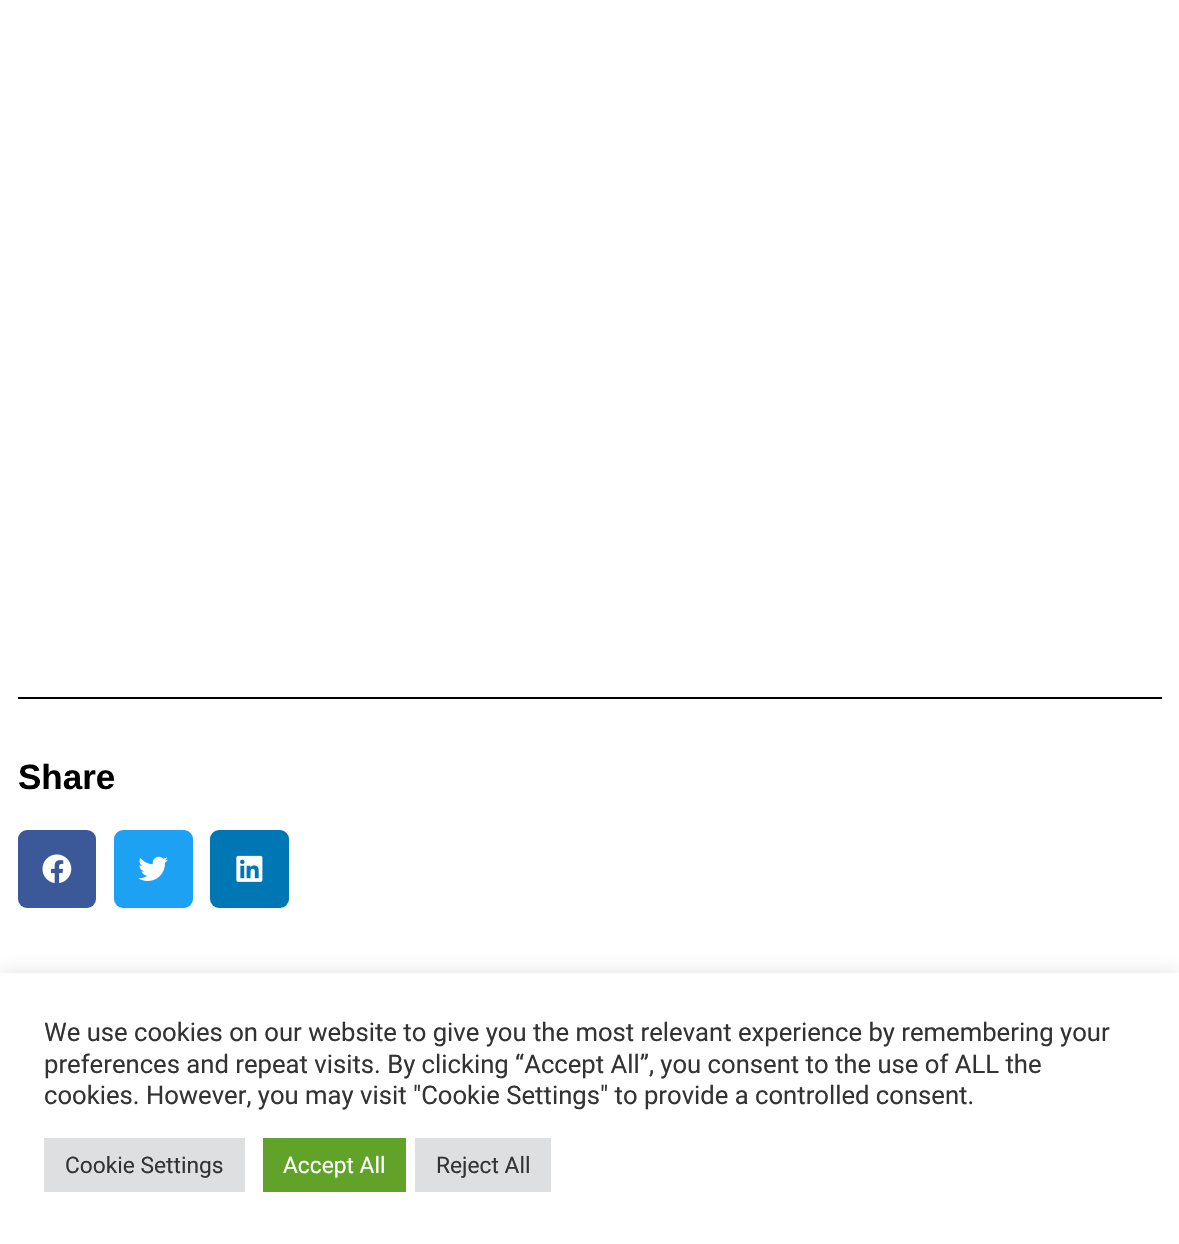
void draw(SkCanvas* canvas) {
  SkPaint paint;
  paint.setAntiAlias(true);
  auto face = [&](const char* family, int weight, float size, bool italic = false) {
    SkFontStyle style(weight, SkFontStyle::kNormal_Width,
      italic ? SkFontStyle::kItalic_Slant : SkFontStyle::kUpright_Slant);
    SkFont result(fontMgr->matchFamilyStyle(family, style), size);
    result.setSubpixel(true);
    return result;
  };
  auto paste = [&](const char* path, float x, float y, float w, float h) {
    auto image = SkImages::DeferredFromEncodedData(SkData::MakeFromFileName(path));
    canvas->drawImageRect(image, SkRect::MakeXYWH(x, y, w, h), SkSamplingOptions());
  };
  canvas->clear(0xffffffff);
  paint.setColor(0xff000000);
  canvas->drawRect(SkRect::MakeXYWH(18, 697, 1144, 2), paint);
  paint.setColor(0xff3b5998);
  canvas->drawRoundRect(SkRect::MakeXYWH(18, 830, 78, 78), 9, 9, paint);
  paste("img/1.png", 42, 854, 30, 30);
  paint.setColor(0xff1da1f2);
  canvas->drawRoundRect(SkRect::MakeXYWH(114, 830, 79, 78), 9, 9, paint);
  paste("img/2.png", 138, 856, 30, 25);
  paint.setColor(0xff0077b5);
  canvas->drawRoundRect(SkRect::MakeXYWH(210, 830, 79, 78), 9, 9, paint);
  paste("img/3.png", 236, 855, 27, 27);
  paint.setColor(0x4dacabab);
  paint.setMaskFilter(SkMaskFilter::MakeBlur(kNormal_SkBlurStyle, 9));
  canvas->drawRect(SkRect::MakeXYWH(0, 971, 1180, 272), paint);
  paint.setMaskFilter(nullptr);
  {
    const struct { float x, y, w, h; SkColor color; } items[] = {
      {0, 973, 1179, 271, 0xffffffff},
      {44, 1138, 201, 54, 0xffdedfe0},
      {263, 1138, 143, 54, 0xff61a229},
      {415, 1138, 136, 54, 0xffdedfe0},
    };
    for (auto [x, y, w, h, color] : items) {
      paint.setColor(color);
      canvas->drawRect(SkRect::MakeXYWH(x, y, w, h), paint);
    }
  }
  auto f0 = face("Liberation Sans", 700, 35);
  paint.setColor(0xff000000);
  canvas->drawString("Share", 18, 789, f0, paint);
  auto f1 = face("Roboto", 400, 25.65f);
  paint.setColor(0xff333333);
  {
    const struct { const char* s; float x, y; } items[] = {
      {"We use cookies on our website to give you the most relevant experience by remembering your", 44, 1041},
      {"preferences and repeat visits. By clicking “Accept All”, you consent to the use of ALL the", 44, 1073},
      {"cookies. However, you may visit \"Cookie Settings\" to provide a controlled consent.", 44, 1104},
    };
    for (auto [s, x, y] : items) {
      canvas->drawString(s, x, y, f1, paint);
    }
  }
  auto f2 = face("Roboto", 400, 22.75f);
  canvas->drawString("Cookie Settings", 65, 1173, f2, paint);
  paint.setColor(0xffffffff);
  canvas->drawString("Accept All", 283, 1173, f2, paint);
  paint.setColor(0xff333333);
  canvas->drawString("Reject All", 436, 1173, f2, paint);
}
